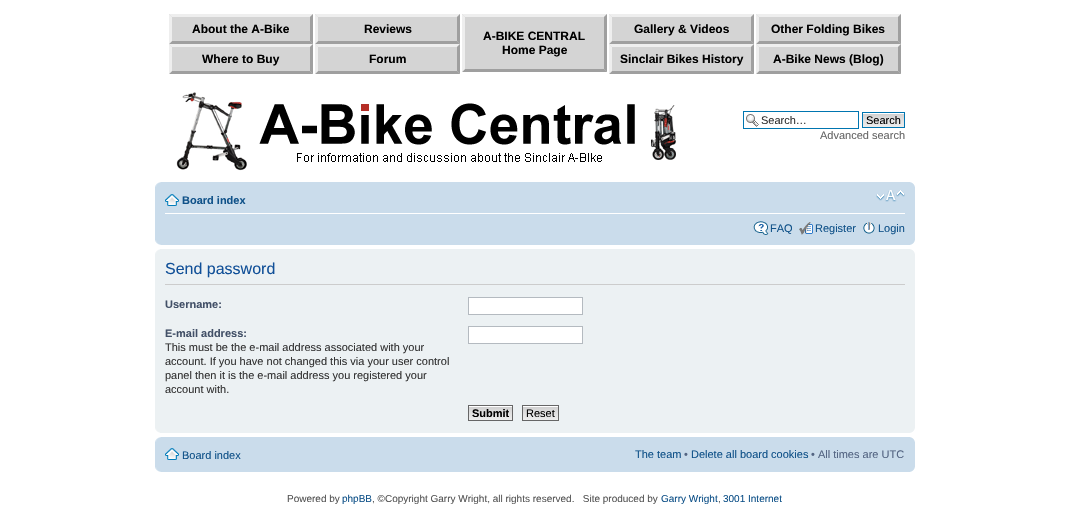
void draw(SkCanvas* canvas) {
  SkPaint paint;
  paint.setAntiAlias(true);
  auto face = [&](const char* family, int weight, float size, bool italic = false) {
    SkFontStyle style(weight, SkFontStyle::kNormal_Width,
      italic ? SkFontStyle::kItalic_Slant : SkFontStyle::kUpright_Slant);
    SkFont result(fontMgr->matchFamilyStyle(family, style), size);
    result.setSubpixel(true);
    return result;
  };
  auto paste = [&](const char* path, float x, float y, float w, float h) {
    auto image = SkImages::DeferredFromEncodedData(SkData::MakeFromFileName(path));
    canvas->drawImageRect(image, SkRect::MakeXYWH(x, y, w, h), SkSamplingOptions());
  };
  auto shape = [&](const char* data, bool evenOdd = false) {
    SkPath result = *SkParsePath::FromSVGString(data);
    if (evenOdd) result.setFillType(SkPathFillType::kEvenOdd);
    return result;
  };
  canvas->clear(0xffffffff);
  paint.setColor(0xffd4d4d4);
  canvas->drawRect(SkRect::MakeXYWH(169, 14, 144, 60), paint);
  paint.setColor(0xffeeeeee);
  canvas->drawPath(shape("M169 14H313L310 17H172Z"), paint);
  paint.setColor(0xff9f9f9f);
  canvas->drawPath(shape("M313 14V44L310 41V17Z"), paint);
  canvas->drawPath(shape("M313 44H169L172 41H310Z"), paint);
  paint.setColor(0xffeeeeee);
  canvas->drawPath(shape("M169 44V14L172 17V41Z"), paint);
  canvas->drawPath(shape("M169 44H313L310 47H172Z"), paint);
  paint.setColor(0xff9f9f9f);
  canvas->drawPath(shape("M313 44V74L310 71V47Z"), paint);
  canvas->drawPath(shape("M313 74H169L172 71H310Z"), paint);
  paint.setColor(0xffeeeeee);
  canvas->drawPath(shape("M169 74V44L172 47V71Z"), paint);
  paint.setColor(0xffd4d4d4);
  canvas->drawRect(SkRect::MakeXYWH(315, 14, 145, 60), paint);
  paint.setColor(0xffeeeeee);
  canvas->drawPath(shape("M315 14H460L457 17H318Z"), paint);
  paint.setColor(0xff9f9f9f);
  canvas->drawPath(shape("M460 14V44L457 41V17Z"), paint);
  canvas->drawPath(shape("M460 44H315L318 41H457Z"), paint);
  paint.setColor(0xffeeeeee);
  canvas->drawPath(shape("M315 44V14L318 17V41Z"), paint);
  canvas->drawPath(shape("M315 44H460L457 47H318Z"), paint);
  paint.setColor(0xff9f9f9f);
  canvas->drawPath(shape("M460 44V74L457 71V47Z"), paint);
  canvas->drawPath(shape("M460 74H315L318 71H457Z"), paint);
  paint.setColor(0xffeeeeee);
  canvas->drawPath(shape("M315 74V44L318 47V71Z"), paint);
  paint.setColor(0xffd4d4d4);
  canvas->drawRect(SkRect::MakeXYWH(462, 14, 145, 58), paint);
  paint.setColor(0xffeeeeee);
  canvas->drawPath(shape("M462 14H607L604 17H465Z"), paint);
  paint.setColor(0xff9f9f9f);
  canvas->drawPath(shape("M607 14V72L604 69V17Z"), paint);
  canvas->drawPath(shape("M607 72H462L465 69H604Z"), paint);
  paint.setColor(0xffeeeeee);
  canvas->drawPath(shape("M462 72V14L465 17V69Z"), paint);
  paint.setColor(0xffd4d4d4);
  canvas->drawRect(SkRect::MakeXYWH(609, 14, 145, 60), paint);
  paint.setColor(0xffeeeeee);
  canvas->drawPath(shape("M609 14H754L751 17H612Z"), paint);
  paint.setColor(0xff9f9f9f);
  canvas->drawPath(shape("M754 14V44L751 41V17Z"), paint);
  canvas->drawPath(shape("M754 44H609L612 41H751Z"), paint);
  paint.setColor(0xffeeeeee);
  canvas->drawPath(shape("M609 44V14L612 17V41Z"), paint);
  canvas->drawPath(shape("M609 44H754L751 47H612Z"), paint);
  paint.setColor(0xff9f9f9f);
  canvas->drawPath(shape("M754 44V74L751 71V47Z"), paint);
  canvas->drawPath(shape("M754 74H609L612 71H751Z"), paint);
  paint.setColor(0xffeeeeee);
  canvas->drawPath(shape("M609 74V44L612 47V71Z"), paint);
  paint.setColor(0xffd4d4d4);
  canvas->drawRect(SkRect::MakeXYWH(756, 14, 145, 60), paint);
  paint.setColor(0xffeeeeee);
  canvas->drawPath(shape("M756 14H901L898 17H759Z"), paint);
  paint.setColor(0xff9f9f9f);
  canvas->drawPath(shape("M901 14V44L898 41V17Z"), paint);
  canvas->drawPath(shape("M901 44H756L759 41H898Z"), paint);
  paint.setColor(0xffeeeeee);
  canvas->drawPath(shape("M756 44V14L759 17V41Z"), paint);
  canvas->drawPath(shape("M756 44H901L898 47H759Z"), paint);
  paint.setColor(0xff9f9f9f);
  canvas->drawPath(shape("M901 44V74L898 71V47Z"), paint);
  canvas->drawPath(shape("M901 74H756L759 71H898Z"), paint);
  paint.setColor(0xffeeeeee);
  canvas->drawPath(shape("M756 74V44L759 47V71Z"), paint);
  paste("img/1.png", 176, 92, 500, 79);
  paste("img/2.png", 746, 114, 13, 13);
  paint.setStroke(true);
  paint.setStrokeWidth(1);
  paint.setColor(0xff0075b0);
  canvas->drawRect(SkRect::MakeXYWH(743.5f, 111.5f, 115, 17), paint);
  paste("img/3.png", 863, 113, 41, 14);
  canvas->drawRect(SkRect::MakeXYWH(862.5f, 112.5f, 42, 15), paint);
  paint.setStroke(false);
  paint.setColor(0xffcadceb);
  canvas->drawRect(SkRect::MakeXYWH(155, 182, 760, 63), paint);
  paste("img/4.png", 155, 182, 6, 5);
  paste("img/5.png", 910, 182, 5, 5);
  paint.setColor(0xffffffff);
  canvas->drawRect(SkRect::MakeXYWH(165, 213, 740, 1), paint);
  paste("img/6.png", 165, 194, 14, 12);
  paste("img/7.png", 876, 190, 29, 12);
  paste("img/8.png", 753, 221, 16, 14);
  paste("img/9.png", 799, 222, 14, 13);
  paste("img/10.png", 863, 222, 12, 12);
  paste("img/11.png", 155, 240, 6, 5);
  paste("img/12.png", 910, 240, 5, 5);
  paint.setColor(0xffecf1f3);
  canvas->drawRect(SkRect::MakeXYWH(155, 249, 760, 184), paint);
  paste("img/13.png", 155, 249, 5, 5);
  paste("img/14.png", 910, 249, 5, 5);
  paint.setColor(0xffcccccc);
  canvas->drawRect(SkRect::MakeXYWH(165, 284, 740, 1), paint);
  paint.setColor(0xffffffff);
  canvas->drawRect(SkRect::MakeXYWH(468.5f, 297.5f, 114, 17), paint);
  paint.setStroke(true);
  paint.setColor(0xffb4bac0);
  canvas->drawRect(SkRect::MakeXYWH(468.5f, 297.5f, 114, 17), paint);
  paint.setStroke(false);
  paint.setColor(0xffffffff);
  canvas->drawRect(SkRect::MakeXYWH(468.5f, 326.5f, 114, 17), paint);
  paint.setStroke(true);
  paint.setColor(0xffb4bac0);
  canvas->drawRect(SkRect::MakeXYWH(468.5f, 326.5f, 114, 17), paint);
  paste("img/15.png", 469, 406, 43, 14);
  paint.setColor(0xff666666);
  canvas->drawRect(SkRect::MakeXYWH(468.5f, 405.5f, 44, 15), paint);
  paste("img/16.png", 523, 406, 35, 14);
  canvas->drawRect(SkRect::MakeXYWH(522.5f, 405.5f, 36, 15), paint);
  paste("img/17.png", 155, 428, 5, 5);
  paste("img/18.png", 910, 428, 5, 5);
  paint.setStroke(false);
  paint.setColor(0xffcadceb);
  canvas->drawRect(SkRect::MakeXYWH(155, 437, 760, 35), paint);
  paste("img/4.png", 155, 437, 6, 5);
  paste("img/5.png", 910, 437, 5, 5);
  paste("img/6.png", 165, 448, 14, 12);
  paste("img/11.png", 155, 467, 6, 5);
  paste("img/12.png", 910, 467, 5, 5);
  auto f0 = face("Liberation Sans", 700, 12);
  paint.setColor(0xff000000);
  {
    const struct { const char* s; float x, y; } items[] = {
      {"About the A-Bike", 192, 33},
      {"Where to Buy", 202, 63},
      {"Reviews", 364, 33},
      {"Forum", 369, 63},
      {"A-BIKE CENTRAL", 483, 40},
      {"Home Page", 502, 54},
      {"Gallery & Videos", 634, 33},
      {"Sinclair Bikes History", 620, 63},
      {"Other Folding Bikes", 771, 33},
      {"A-Bike News (Blog)", 773, 63},
    };
    for (auto [s, x, y] : items) {
      canvas->drawString(s, x, y, f0, paint);
    }
  }
  auto f1 = face("Liberation Sans", 400, 11);
  paint.setColor(0xff333333);
  canvas->drawString("Search…", 761, 124, f1, paint);
  paint.setColor(0xff000000);
  canvas->drawString("Search", 866, 124, f1, paint);
  paint.setColor(0xff666666);
  canvas->drawString("Advanced search", 820, 139, f1, paint);
  auto f2 = face("Liberation Sans", 700, 11);
  paint.setColor(0xff105289);
  canvas->drawString("Board index", 182, 204, f2, paint);
  {
    const struct { const char* s; float x, y; } items[] = {
      {"FAQ", 770, 232},
      {"Register", 815, 232},
      {"Login", 878, 232},
    };
    for (auto [s, x, y] : items) {
      canvas->drawString(s, x, y, f1, paint);
    }
  }
  auto f3 = face("Liberation Sans", 400, 16);
  paint.setColor(0xff115098);
  canvas->drawString("Send password", 165, 274, f3, paint);
  paint.setColor(0xff425067);
  canvas->drawString("Username:", 165, 308, f2, paint);
  canvas->drawString("E-mail address:", 165, 337, f2, paint);
  paint.setColor(0xff333333);
  {
    const struct { const char* s; float x, y; } items[] = {
      {"This must be the e-mail address associated with your", 165, 351},
      {"account. If you have not changed this via your user control", 165, 365},
      {"panel then it is the e-mail address you registered your", 165, 379},
      {"account with.", 165, 393},
    };
    for (auto [s, x, y] : items) {
      canvas->drawString(s, x, y, f1, paint);
    }
  }
  paint.setColor(0xff000000);
  canvas->drawString("Submit", 472, 417, f2, paint);
  canvas->drawString("Reset", 526, 417, f1, paint);
  paint.setColor(0xff105289);
  canvas->drawString("Board index", 182, 459, f1, paint);
  canvas->drawString("The team", 635, 458, f1, paint);
  paint.setColor(0xff536482);
  canvas->drawString("•", 684, 458, f1, paint);
  paint.setColor(0xff105289);
  canvas->drawString("Delete all board cookies", 691, 458, f1, paint);
  paint.setColor(0xff536482);
  canvas->drawString("• All times are UTC", 811, 458, f1, paint);
  auto f4 = face("Liberation Sans", 400, 10);
  paint.setColor(0xff555555);
  canvas->drawString("Powered by", 287, 502, f4, paint);
  paint.setColor(0xff105289);
  canvas->drawString("phpBB", 342, 502, f4, paint);
  paint.setColor(0xff555555);
  canvas->drawString(", ©Copyright Garry Wright, all rights reserved.   Site produced by", 372, 502, f4, paint);
  paint.setColor(0xff105289);
  canvas->drawString("Garry Wright", 661, 502, f4, paint);
  paint.setColor(0xff555555);
  canvas->drawString(",", 718, 502, f4, paint);
  paint.setColor(0xff105289);
  canvas->drawString("3001 Internet", 723, 502, f4, paint);
}
